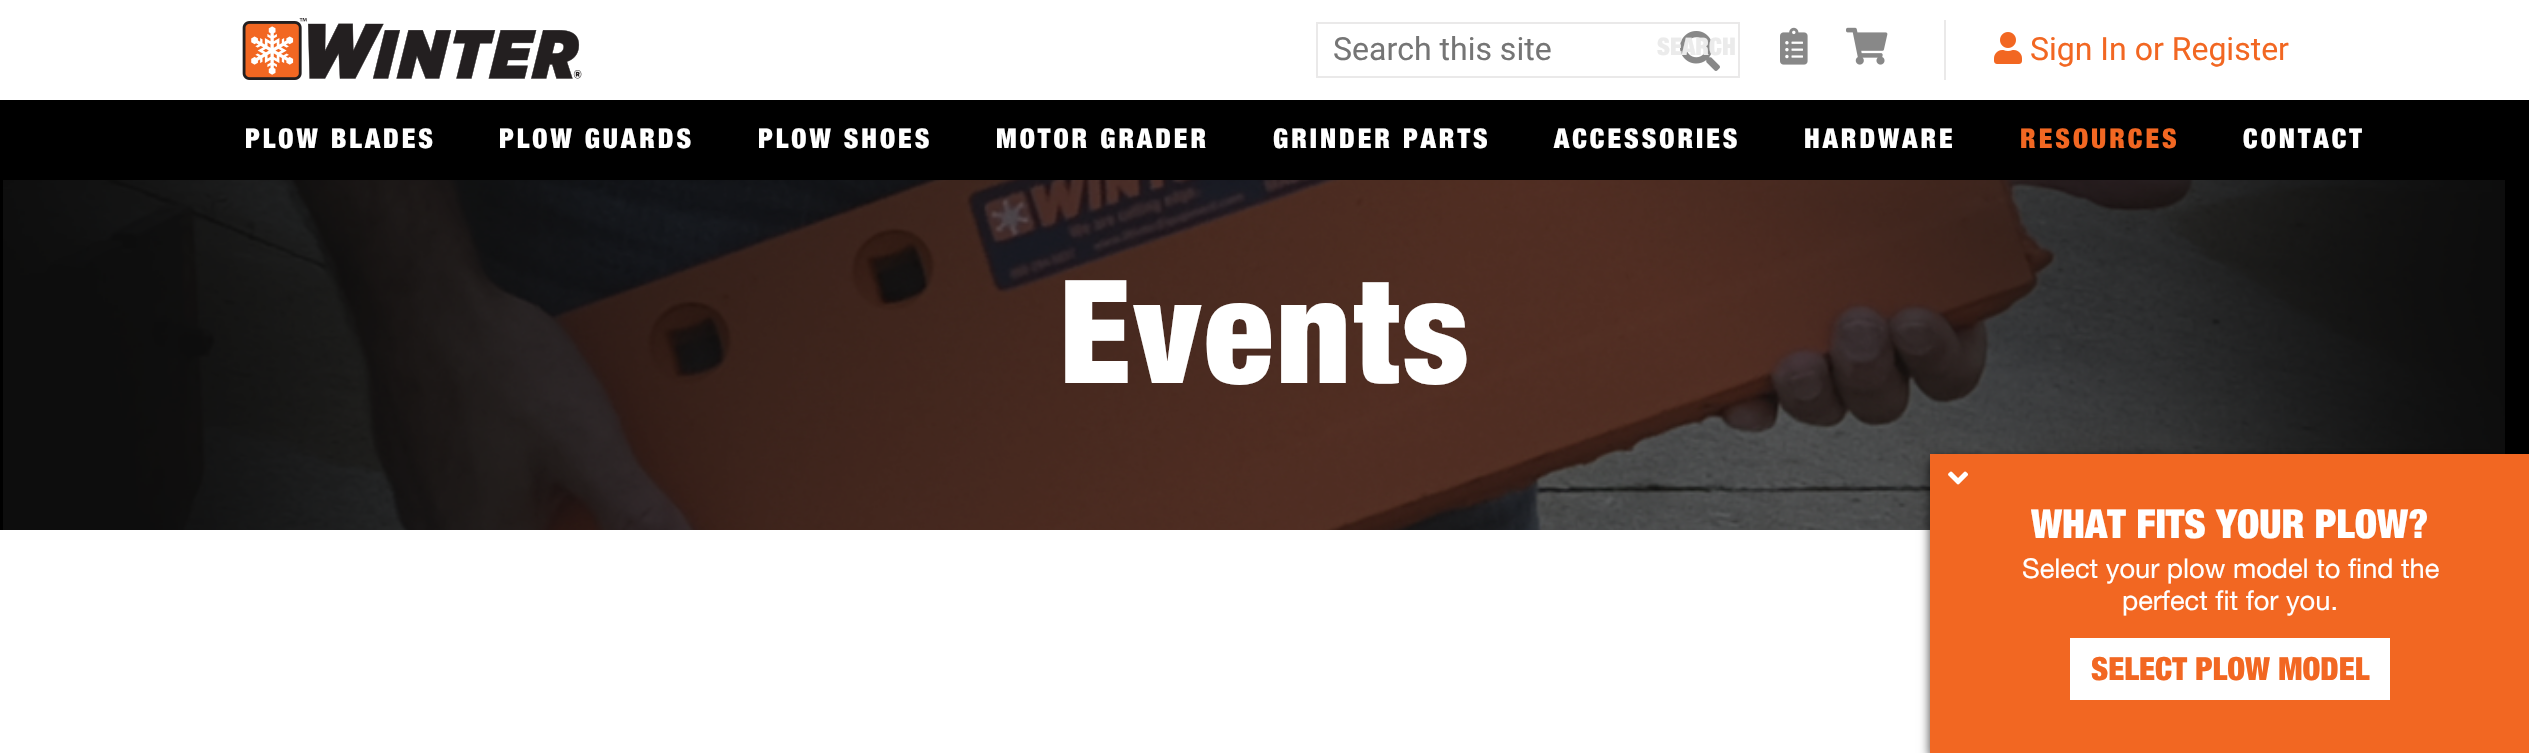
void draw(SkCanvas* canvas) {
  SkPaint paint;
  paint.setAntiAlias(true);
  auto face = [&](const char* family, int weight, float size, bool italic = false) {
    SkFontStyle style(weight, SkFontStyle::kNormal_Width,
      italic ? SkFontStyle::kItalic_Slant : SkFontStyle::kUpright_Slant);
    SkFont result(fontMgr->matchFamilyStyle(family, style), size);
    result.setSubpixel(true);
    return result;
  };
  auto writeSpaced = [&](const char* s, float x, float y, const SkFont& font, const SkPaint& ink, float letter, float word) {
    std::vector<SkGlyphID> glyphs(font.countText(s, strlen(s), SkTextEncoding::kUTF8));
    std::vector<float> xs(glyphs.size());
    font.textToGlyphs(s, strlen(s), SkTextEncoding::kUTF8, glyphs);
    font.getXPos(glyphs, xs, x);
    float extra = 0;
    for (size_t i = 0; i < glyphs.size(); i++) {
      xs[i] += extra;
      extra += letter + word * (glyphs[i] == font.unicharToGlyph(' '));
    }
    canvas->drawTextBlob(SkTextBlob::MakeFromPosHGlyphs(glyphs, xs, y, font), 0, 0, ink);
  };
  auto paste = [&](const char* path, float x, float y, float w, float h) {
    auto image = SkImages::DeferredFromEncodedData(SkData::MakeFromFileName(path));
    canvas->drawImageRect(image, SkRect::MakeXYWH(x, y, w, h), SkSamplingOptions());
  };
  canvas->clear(0xffffffff);
  paste("img/1.png", 242, 18, 340, 62);
  paint.setStroke(true);
  paint.setStrokeWidth(2);
  paint.setColor(0xffeae9e9);
  canvas->drawRect(SkRect::MakeXYWH(1317, 23, 422, 54), paint);
  paste("img/2.png", 1680, 31, 40, 40);
  paste("img/3.png", 1780, 27, 28, 38);
  paste("img/4.png", 1846, 27, 42, 38);
  paint.setStroke(false);
  canvas->drawRect(SkRect::MakeXYWH(1944, 20, 2, 60), paint);
  paste("img/5.png", 1994, 32, 28, 32);
  paint.setColor(0xff000000);
  canvas->drawRect(SkRect::MakeXYWH(0, 100, 2529, 430), paint);
  paste("img/6.png", 3, 180, 2502, 350);
  paint.setColor(0xbf000000);
  paint.setMaskFilter(SkMaskFilter::MakeBlur(kNormal_SkBlurStyle, 5));
  canvas->drawRect(SkRect::MakeXYWH(1930, 458, 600, 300), paint);
  paint.setMaskFilter(nullptr);
  paint.setColor(0xfff26722);
  canvas->drawRect(SkRect::MakeXYWH(1930, 454, 599, 299), paint);
  paste("img/7.png", 1948, 471, 20, 14);
  paint.setColor(0xffffffff);
  canvas->drawRect(SkRect::MakeXYWH(2070, 638, 320, 62), paint);
  auto f0 = face("Roboto", 400, 32);
  paint.setColor(0xff757575);
  canvas->drawString("Search this site", 1333, 60, f0, paint);
  auto f1 = face("Helvetica Neue", 900, 24);
  paint.setColor(0xffebebeb);
  canvas->drawString("SEARCH", 1657, 55, f1, paint);
  paint.setColor(0xfff26722);
  canvas->drawString("Sign In or Register", 2030, 60, f0, paint);
  auto f2 = face("Helvetica Neue", 900, 27.25f);
  paint.setColor(0xffffffff);
  {
    const struct { const char* s; float x, y; } items[] = {
      {"PLOW BLADES", 245, 148},
      {"PLOW GUARDS", 499, 148},
      {"PLOW SHOES", 758, 148},
      {"MOTOR GRADER", 996, 148},
      {"GRINDER PARTS", 1273, 148},
      {"ACCESSORIES", 1554, 148},
      {"HARDWARE", 1804, 148},
    };
    for (auto [s, x, y] : items) {
      writeSpaced(s, x, y, f2, paint, 3, 0);
    }
  }
  paint.setColor(0xfff26722);
  writeSpaced("RESOURCES", 2020, 148, f2, paint, 3, 0);
  paint.setColor(0xffffffff);
  writeSpaced("CONTACT", 2243, 148, f2, paint, 3, 0);
  auto f3 = face("Helvetica Neue", 900, 144);
  writeSpaced("Events", 1059, 383, f3, paint, 3, 0);
  auto f4 = face("Helvetica Neue", 900, 40);
  canvas->drawString("WHAT FITS YOUR PLOW?", 2031, 538, f4, paint);
  auto f5 = face("Helvetica Neue", 400, 27.25f);
  canvas->drawString("Select your plow model to find the", 2022, 578, f5, paint);
  canvas->drawString("perfect fit for you.", 2122, 610, f5, paint);
  auto f6 = face("Helvetica Neue", 900, 32);
  paint.setColor(0xfff26722);
  canvas->drawString("SELECT PLOW MODEL", 2091, 680, f6, paint);
}
